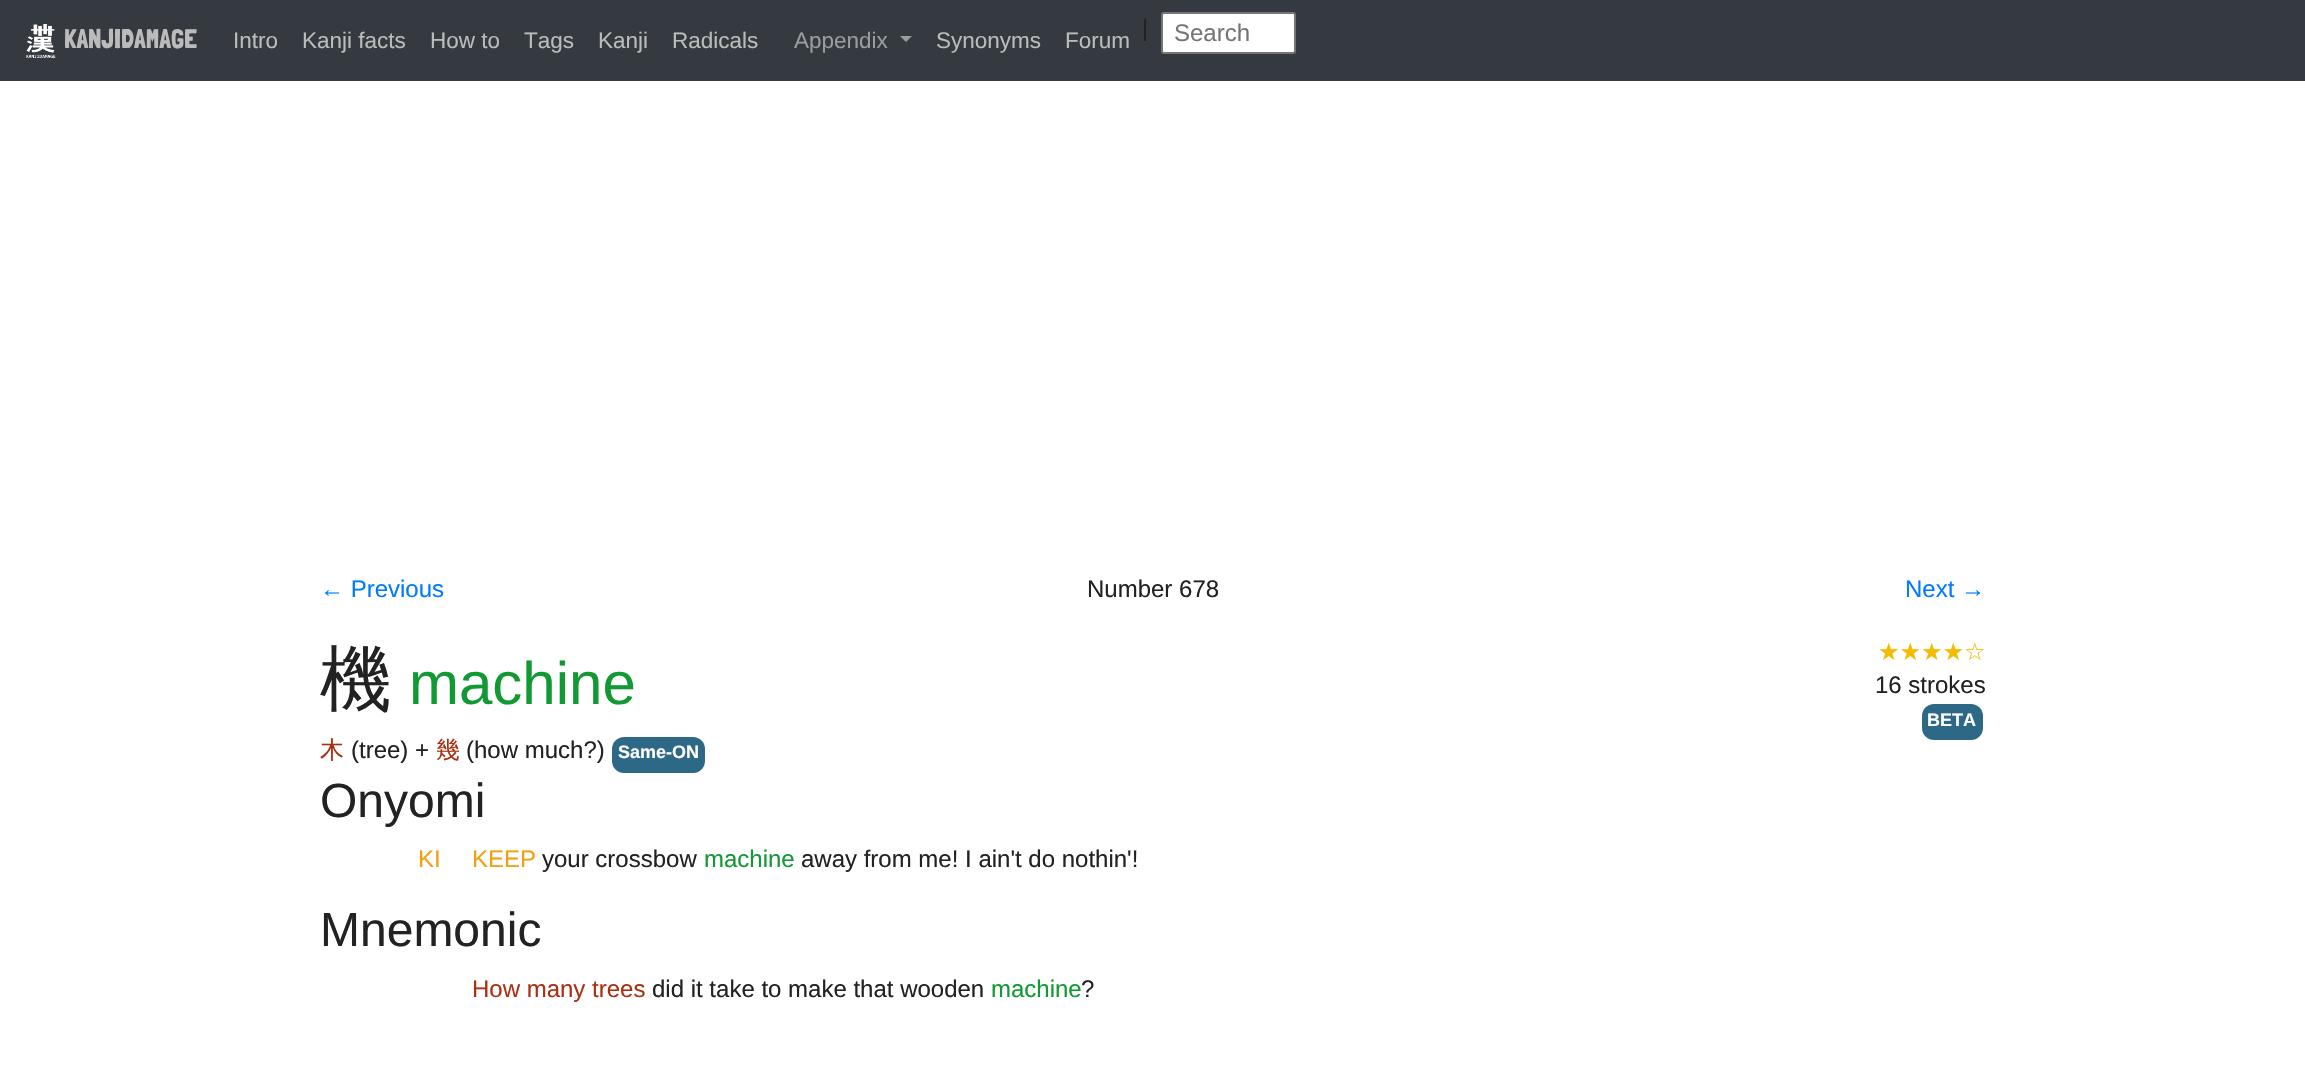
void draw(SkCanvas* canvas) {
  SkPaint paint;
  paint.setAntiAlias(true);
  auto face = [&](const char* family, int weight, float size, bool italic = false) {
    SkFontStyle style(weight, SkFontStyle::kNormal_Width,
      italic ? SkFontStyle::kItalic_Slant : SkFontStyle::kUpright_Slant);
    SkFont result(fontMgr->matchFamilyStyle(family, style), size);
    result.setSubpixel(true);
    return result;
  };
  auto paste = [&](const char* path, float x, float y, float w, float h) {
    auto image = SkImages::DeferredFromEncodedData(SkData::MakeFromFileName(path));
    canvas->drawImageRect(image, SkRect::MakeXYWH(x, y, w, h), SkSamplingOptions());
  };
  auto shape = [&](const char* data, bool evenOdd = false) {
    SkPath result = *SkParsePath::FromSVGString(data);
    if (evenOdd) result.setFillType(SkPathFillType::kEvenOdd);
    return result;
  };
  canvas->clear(0xffffffff);
  paint.setColor(0xff343a40);
  canvas->drawRect(SkRect::MakeXYWH(0, 0, 2305, 81), paint);
  paste("img/1.png", 26, 24, 30, 34);
  paint.setColor(0xff9a9da0);
  canvas->drawPath(shape("M900 36H912L906 42Z"), paint);
  paint.setColor(0xffffffff);
  canvas->drawRoundRect(SkRect::MakeXYWH(1162, 13, 133, 40), 2, 2, paint);
  paint.setStroke(true);
  paint.setStrokeWidth(2);
  paint.setColor(0xff767676);
  canvas->drawRoundRect(SkRect::MakeXYWH(1162, 13, 133, 40), 2, 2, paint);
  paint.setStroke(false);
  paint.setColor(0xff2d6987);
  canvas->drawRoundRect(SkRect::MakeXYWH(612, 737, 93, 36), 12, 12, paint);
  canvas->drawRoundRect(SkRect::MakeXYWH(1922, 704, 61, 36), 12, 12, paint);
  auto f0 = face("Londrina Solid", 400, 27);
  paint.setColor(0xffbbbbbb);
  canvas->drawString("KANJIDAMAGE", 64, 48, f0, paint);
  auto f1 = face("Liberation Sans", 400, 22.5f);
  {
    const struct { const char* s; float x, y; } items[] = {
      {"Intro", 233, 48},
      {"Kanji facts", 302, 48},
      {"How to", 430, 48},
      {"Tags", 524, 48},
      {"Kanji", 598, 48},
      {"Radicals", 672, 48},
    };
    for (auto [s, x, y] : items) {
      canvas->drawString(s, x, y, f1, paint);
    }
  }
  paint.setColor(0xff9a9da0);
  canvas->drawString("Appendix", 794, 48, f1, paint);
  paint.setColor(0xffbbbbbb);
  canvas->drawString("Synonyms", 936, 48, f1, paint);
  canvas->drawString("Forum", 1065, 48, f1, paint);
  auto f2 = face("Liberation Sans", 400, 24);
  paint.setColor(0xff222222);
  canvas->drawString("|", 1142, 36, f2, paint);
  paint.setColor(0xff757575);
  canvas->drawString("Search", 1174, 41, f2, paint);
  paint.setColor(0xff007bff);
  canvas->drawString("← Previous", 320, 597, f2, paint);
  paint.setColor(0xff222222);
  canvas->drawString("Number 678", 1087, 597, f2, paint);
  paint.setColor(0xff007bff);
  canvas->drawString("Next →", 1905, 597, f2, paint);
  auto f3 = face("WenQuanYi Zen Hei", 500, 72);
  paint.setColor(0xff222222);
  canvas->drawString("機", 320, 704, f3, paint);
  auto f4 = face("Liberation Sans", 400, 60);
  paint.setColor(0xff119933);
  canvas->drawString("machine", 409, 704, f4, paint);
  auto f5 = face("WenQuanYi Zen Hei", 500, 24);
  paint.setColor(0xffaa3011);
  canvas->drawString("木", 320, 758, f5, paint);
  paint.setColor(0xff222222);
  canvas->drawString("(tree) +", 351, 758, f2, paint);
  paint.setColor(0xffaa3011);
  canvas->drawString("幾", 436, 758, f5, paint);
  paint.setColor(0xff222222);
  canvas->drawString("(how much?)", 466, 758, f2, paint);
  auto f6 = face("Liberation Sans", 700, 18);
  paint.setColor(0xffffffff);
  canvas->drawString("Same-ON", 618, 758, f6, paint);
  auto f7 = face("DejaVu Sans", 400, 24);
  paint.setColor(0xfff4bb00);
  canvas->drawString("★★★★☆", 1878, 660, f7, paint);
  paint.setColor(0xff222222);
  canvas->drawString("16 strokes", 1875, 693, f2, paint);
  paint.setColor(0xffffffff);
  canvas->drawString("BETA", 1927, 726, f6, paint);
  auto f8 = face("Liberation Sans", 400, 48);
  paint.setColor(0xff222222);
  canvas->drawString("Onyomi", 320, 817, f8, paint);
  paint.setColor(0xfff0a011);
  canvas->drawString("KI", 418, 867, f2, paint);
  canvas->drawString("KEEP", 472, 867, f2, paint);
  paint.setColor(0xff222222);
  canvas->drawString("your crossbow", 542, 867, f2, paint);
  paint.setColor(0xff119933);
  canvas->drawString("machine", 704, 867, f2, paint);
  paint.setColor(0xff222222);
  canvas->drawString("away from me! I ain't do nothin'!", 801, 867, f2, paint);
  canvas->drawString("Mnemonic", 320, 946, f8, paint);
  paint.setColor(0xffaa3011);
  canvas->drawString("How many trees", 472, 997, f2, paint);
  paint.setColor(0xff222222);
  canvas->drawString("did it take to make that wooden", 652, 997, f2, paint);
  paint.setColor(0xff119933);
  canvas->drawString("machine", 991, 997, f2, paint);
  paint.setColor(0xff222222);
  canvas->drawString("?", 1081, 997, f2, paint);
}
